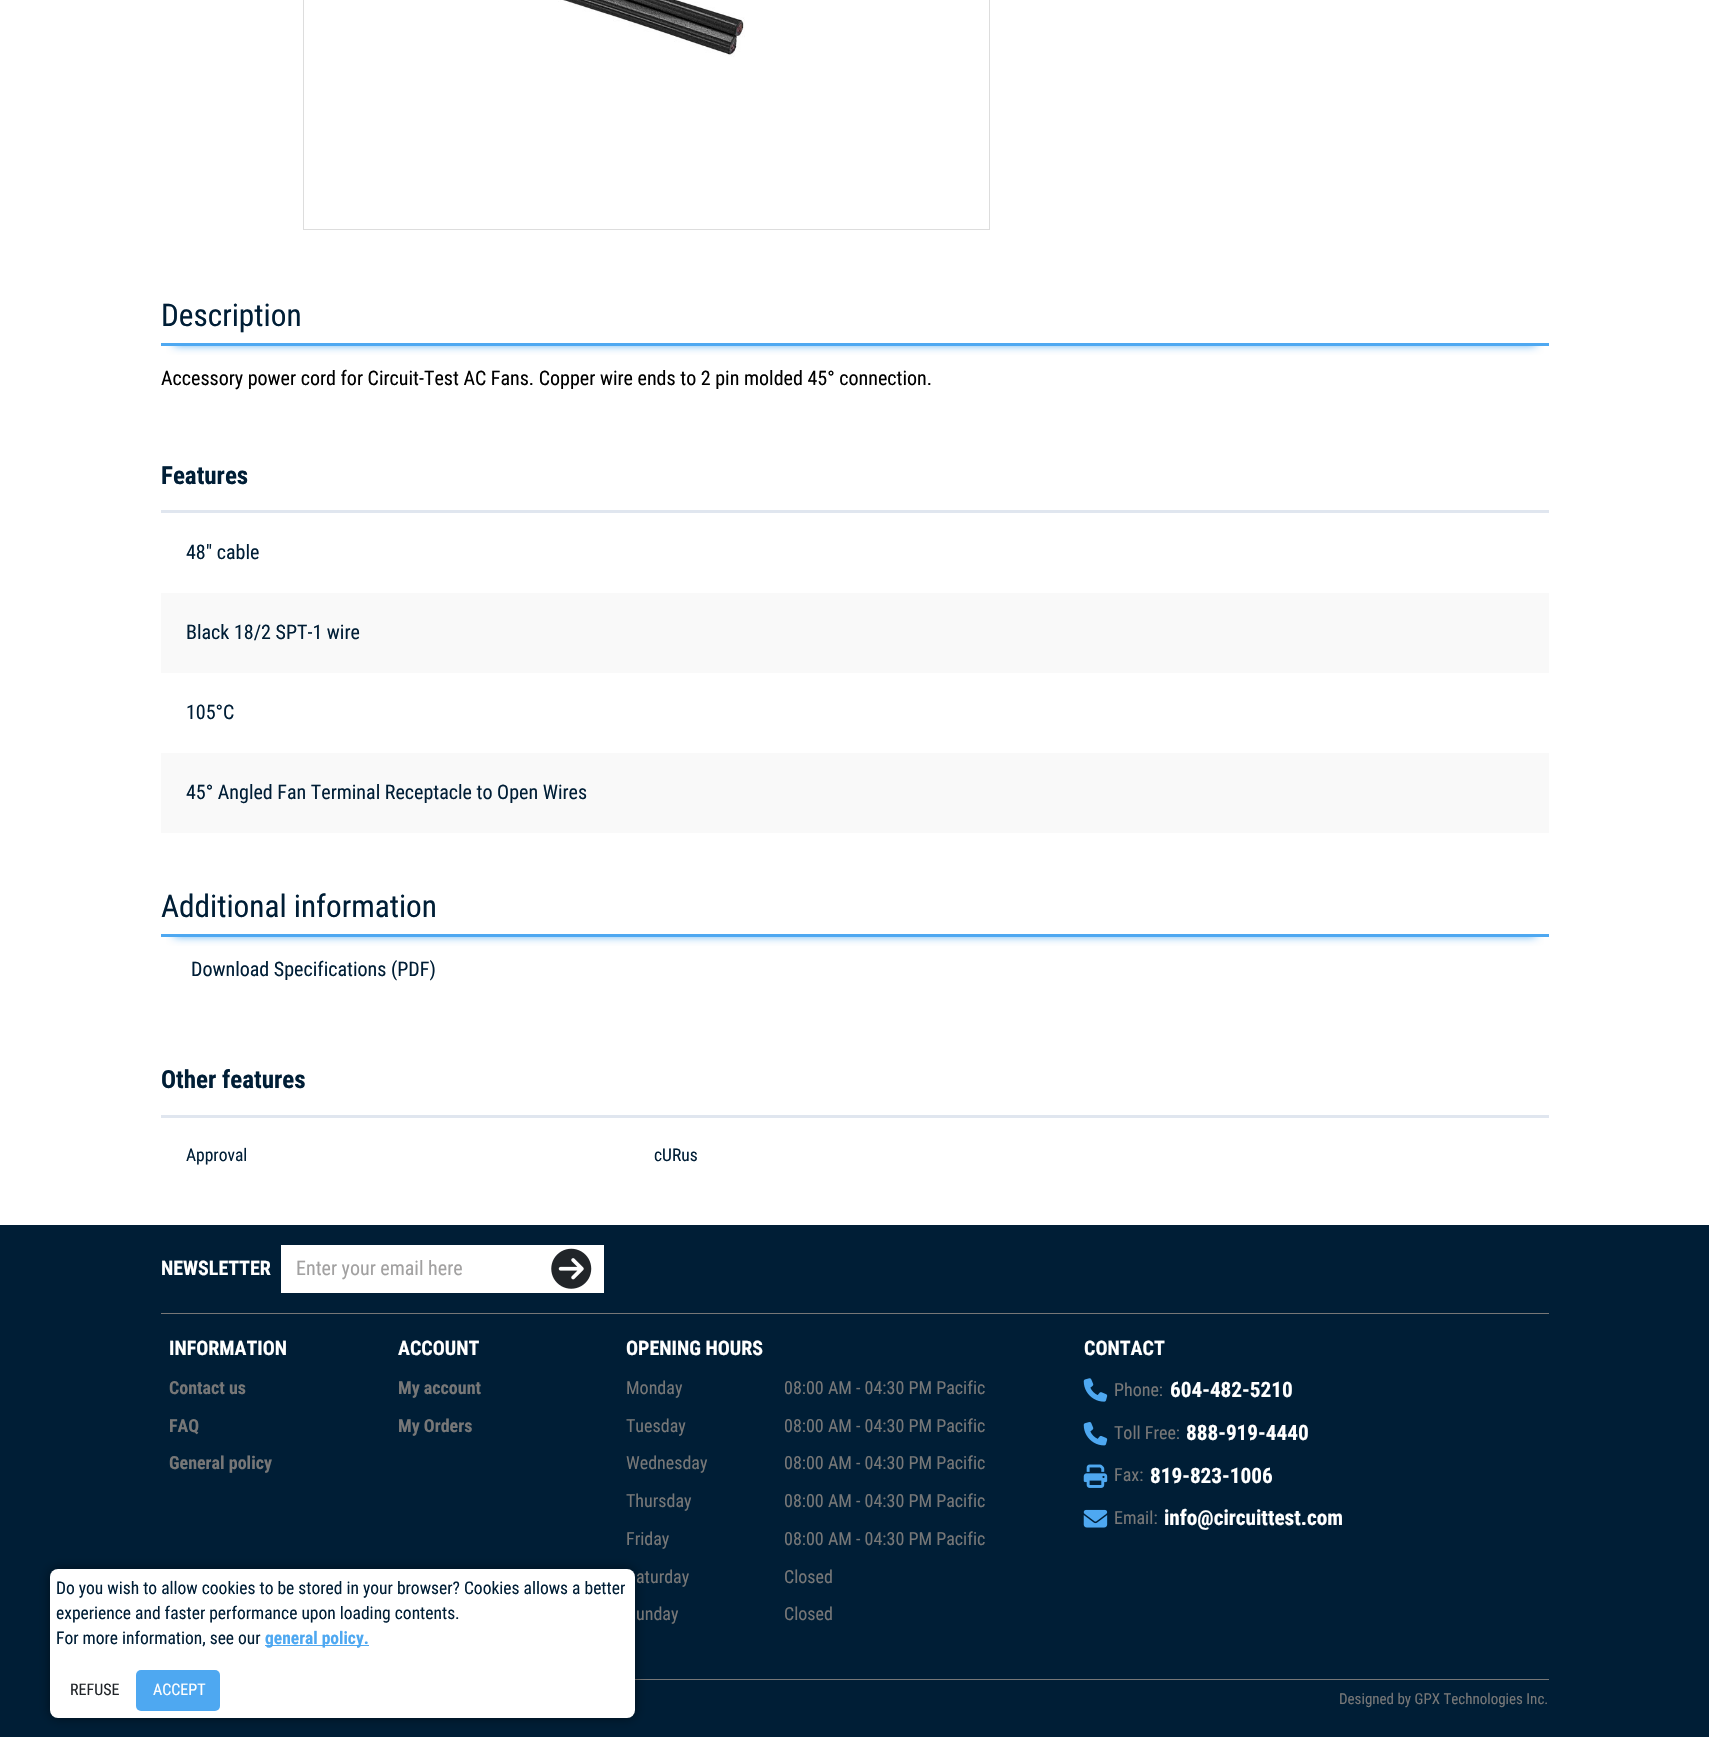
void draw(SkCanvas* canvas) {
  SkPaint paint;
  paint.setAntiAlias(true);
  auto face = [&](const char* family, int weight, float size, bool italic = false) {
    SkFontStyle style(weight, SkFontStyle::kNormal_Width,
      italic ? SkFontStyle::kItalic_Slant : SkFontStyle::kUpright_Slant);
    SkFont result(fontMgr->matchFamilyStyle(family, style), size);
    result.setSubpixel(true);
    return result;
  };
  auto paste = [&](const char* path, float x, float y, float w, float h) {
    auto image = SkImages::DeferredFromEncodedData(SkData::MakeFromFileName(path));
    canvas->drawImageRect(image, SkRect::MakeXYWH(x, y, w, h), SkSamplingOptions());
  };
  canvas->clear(0xffffffff);
  paint.setStroke(true);
  paint.setStrokeWidth(1);
  paint.setColor(0xffdddddd);
  canvas->drawRect(SkRect::MakeXYWH(303.5f, -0.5f, 686, 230), paint);
  paste("img/1.png", 558, 0, 187, 57);
  canvas->save();
  canvas->clipRect(SkRect::MakeXYWH(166, 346, 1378, 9));
  paint.setStroke(false);
  paint.setColor(0xff4ea8f1);
  paint.setMaskFilter(SkMaskFilter::MakeBlur(kNormal_SkBlurStyle, 5));
  canvas->drawRect(SkRect::MakeXYWH(174, 318, 1362, 27), paint);
  paint.setMaskFilter(nullptr);
  canvas->restore();
  {
    const struct { float x, y, w, h; SkColor color; } items[] = {
      {161, 343, 1388, 3, 0xff4ea8f1},
      {161, 510, 1388, 3, 0xffe0e6ef},
      {161, 593, 1388, 80, 0xfff9f9f9},
      {161, 753, 1388, 80, 0xfff9f9f9},
    };
    for (auto [x, y, w, h, color] : items) {
      paint.setColor(color);
      canvas->drawRect(SkRect::MakeXYWH(x, y, w, h), paint);
    }
  }
  canvas->save();
  canvas->clipRect(SkRect::MakeXYWH(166, 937, 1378, 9));
  paint.setColor(0xff4ea8f1);
  paint.setMaskFilter(SkMaskFilter::MakeBlur(kNormal_SkBlurStyle, 5));
  canvas->drawRect(SkRect::MakeXYWH(174, 908, 1362, 28), paint);
  paint.setMaskFilter(nullptr);
  canvas->restore();
  {
    const struct { float x, y, w, h; SkColor color; } items[] = {
      {161, 934, 1388, 3, 0xff4ea8f1},
      {161, 1115, 1388, 3, 0xffe0e6ef},
      {0, 1225, 1709, 512, 0xff001e36},
      {281, 1245, 323, 48, 0xffffffff},
    };
    for (auto [x, y, w, h, color] : items) {
      paint.setColor(color);
      canvas->drawRect(SkRect::MakeXYWH(x, y, w, h), paint);
    }
  }
  paste("img/2.png", 551, 1248, 41, 41);
  paint.setColor(0xff777777);
  canvas->drawRect(SkRect::MakeXYWH(161, 1313, 1388, 1), paint);
  paste("img/3.png", 1083, 1378, 25, 24);
  paste("img/4.png", 1083, 1422, 25, 24);
  paste("img/5.png", 1083, 1464, 25, 24);
  paste("img/6.png", 1083, 1509, 25, 19);
  canvas->drawRect(SkRect::MakeXYWH(635, 1679, 914, 1), paint);
  paint.setColor(0x80000000);
  paint.setMaskFilter(SkMaskFilter::MakeBlur(kNormal_SkBlurStyle, 6));
  canvas->drawRoundRect(SkRect::MakeXYWH(50, 1569, 585, 149), 8, 8, paint);
  paint.setMaskFilter(nullptr);
  paint.setColor(0xffffffff);
  canvas->drawRoundRect(SkRect::MakeXYWH(50, 1569, 585, 149), 8, 8, paint);
  paint.setColor(0xff4ea8f1);
  canvas->drawRect(SkRect::MakeXYWH(265, 1645, 104, 1), paint);
  canvas->drawRoundRect(SkRect::MakeXYWH(136, 1670, 84, 41), 5, 5, paint);
  auto f0 = face("Roboto Condensed", 400, 31.25f);
  paint.setColor(0xff001e36);
  canvas->drawString("Description", 161, 326, f0, paint);
  auto f1 = face("Roboto Condensed", 400, 20);
  paint.setColor(0xff000000);
  canvas->drawString("Accessory power cord for Circuit-Test AC Fans. Copper wire ends to 2 pin molded 45° connection.", 161, 385, f1, paint);
  auto f2 = face("Roboto Condensed", 700, 25);
  paint.setColor(0xff001e36);
  canvas->drawString("Features", 161, 484, f2, paint);
  {
    const struct { const char* s; float x, y; } items[] = {
      {"48\" cable", 186, 559},
      {"Black 18/2 SPT-1 wire", 186, 639},
      {"105°C", 186, 719},
      {"45° Angled Fan Terminal Receptacle to Open Wires", 186, 799},
    };
    for (auto [s, x, y] : items) {
      canvas->drawString(s, x, y, f1, paint);
    }
  }
  canvas->drawString("Additional information", 161, 917, f0, paint);
  canvas->drawString("Download Specifications (PDF)", 191, 976, f1, paint);
  canvas->drawString("Other features", 161, 1088, f2, paint);
  auto f3 = face("Roboto Condensed", 400, 17.5f);
  canvas->drawString("Approval", 186, 1161, f3, paint);
  canvas->drawString("cURus", 654, 1161, f3, paint);
  auto f4 = face("Roboto Condensed", 700, 20);
  paint.setColor(0xffffffff);
  canvas->drawString("NEWSLETTER", 161, 1275, f4, paint);
  paint.setColor(0xffa2a1a1);
  canvas->drawString("Enter your email here", 296, 1275, f1, paint);
  paint.setColor(0xffffffff);
  canvas->drawString("INFORMATION", 169, 1355, f4, paint);
  auto f5 = face("Roboto Condensed", 700, 18);
  paint.setColor(0xff777777);
  {
    const struct { const char* s; float x, y; } items[] = {
      {"Contact us", 169, 1394},
      {"FAQ", 169, 1432},
      {"General policy", 169, 1469},
    };
    for (auto [s, x, y] : items) {
      canvas->drawString(s, x, y, f5, paint);
    }
  }
  paint.setColor(0xffffffff);
  canvas->drawString("ACCOUNT", 398, 1355, f4, paint);
  paint.setColor(0xff777777);
  canvas->drawString("My account", 398, 1394, f5, paint);
  canvas->drawString("My Orders", 398, 1432, f5, paint);
  paint.setColor(0xffffffff);
  canvas->drawString("OPENING HOURS", 626, 1355, f4, paint);
  auto f6 = face("Roboto Condensed", 400, 18);
  paint.setColor(0xff777777);
  {
    const struct { const char* s; float x, y; } items[] = {
      {"Monday", 626, 1394},
      {"08:00 AM - 04:30 PM Pacific", 784, 1394},
      {"Tuesday", 626, 1432},
      {"08:00 AM - 04:30 PM Pacific", 784, 1432},
      {"Wednesday", 626, 1469},
      {"08:00 AM - 04:30 PM Pacific", 784, 1469},
      {"Thursday", 626, 1507},
      {"08:00 AM - 04:30 PM Pacific", 784, 1507},
      {"Friday", 626, 1545},
      {"08:00 AM - 04:30 PM Pacific", 784, 1545},
      {"aturday", 636, 1583},
      {"Closed", 784, 1583},
      {"unday", 636, 1620},
      {"Closed", 784, 1620},
    };
    for (auto [s, x, y] : items) {
      canvas->drawString(s, x, y, f6, paint);
    }
  }
  paint.setColor(0xffffffff);
  canvas->drawString("CONTACT", 1084, 1355, f4, paint);
  paint.setColor(0xff777777);
  canvas->drawString("Phone:", 1114, 1396, f6, paint);
  auto f7 = face("Roboto Condensed", 700, 21.25f);
  paint.setColor(0xffffffff);
  canvas->drawString("604-482-5210", 1170, 1397, f7, paint);
  paint.setColor(0xff777777);
  canvas->drawString("Toll Free:", 1114, 1439, f6, paint);
  paint.setColor(0xffffffff);
  canvas->drawString("888-919-4440", 1186, 1440, f7, paint);
  paint.setColor(0xff777777);
  canvas->drawString("Fax:", 1114, 1481, f6, paint);
  paint.setColor(0xffffffff);
  canvas->drawString("819-823-1006", 1150, 1483, f7, paint);
  paint.setColor(0xff777777);
  canvas->drawString("Email:", 1114, 1524, f6, paint);
  paint.setColor(0xffffffff);
  canvas->drawString("info@circuittest.com", 1164, 1525, f7, paint);
  auto f8 = face("Roboto Condensed", 400, 15);
  paint.setColor(0xff777777);
  canvas->drawString("Designed by GPX Technologies Inc.", 1339, 1704, f8, paint);
  paint.setColor(0xff001e36);
  {
    const struct { const char* s; float x, y; } items[] = {
      {"Do you wish to allow cookies to be stored in your browser? Cookies allows a better", 56, 1594},
      {"experience and faster performance upon loading contents.", 56, 1619},
      {"For more information, see our", 56, 1644},
    };
    for (auto [s, x, y] : items) {
      canvas->drawString(s, x, y, f3, paint);
    }
  }
  auto f9 = face("Roboto Condensed", 700, 17.5f);
  paint.setColor(0xff4ea8f1);
  canvas->drawString("general policy.", 265, 1644, f9, paint);
  auto f10 = face("Roboto Condensed", 400, 16);
  paint.setColor(0xff212529);
  canvas->drawString("REFUSE", 70, 1695, f10, paint);
  paint.setColor(0xffffffff);
  canvas->drawString("ACCEPT", 153, 1695, f10, paint);
}
